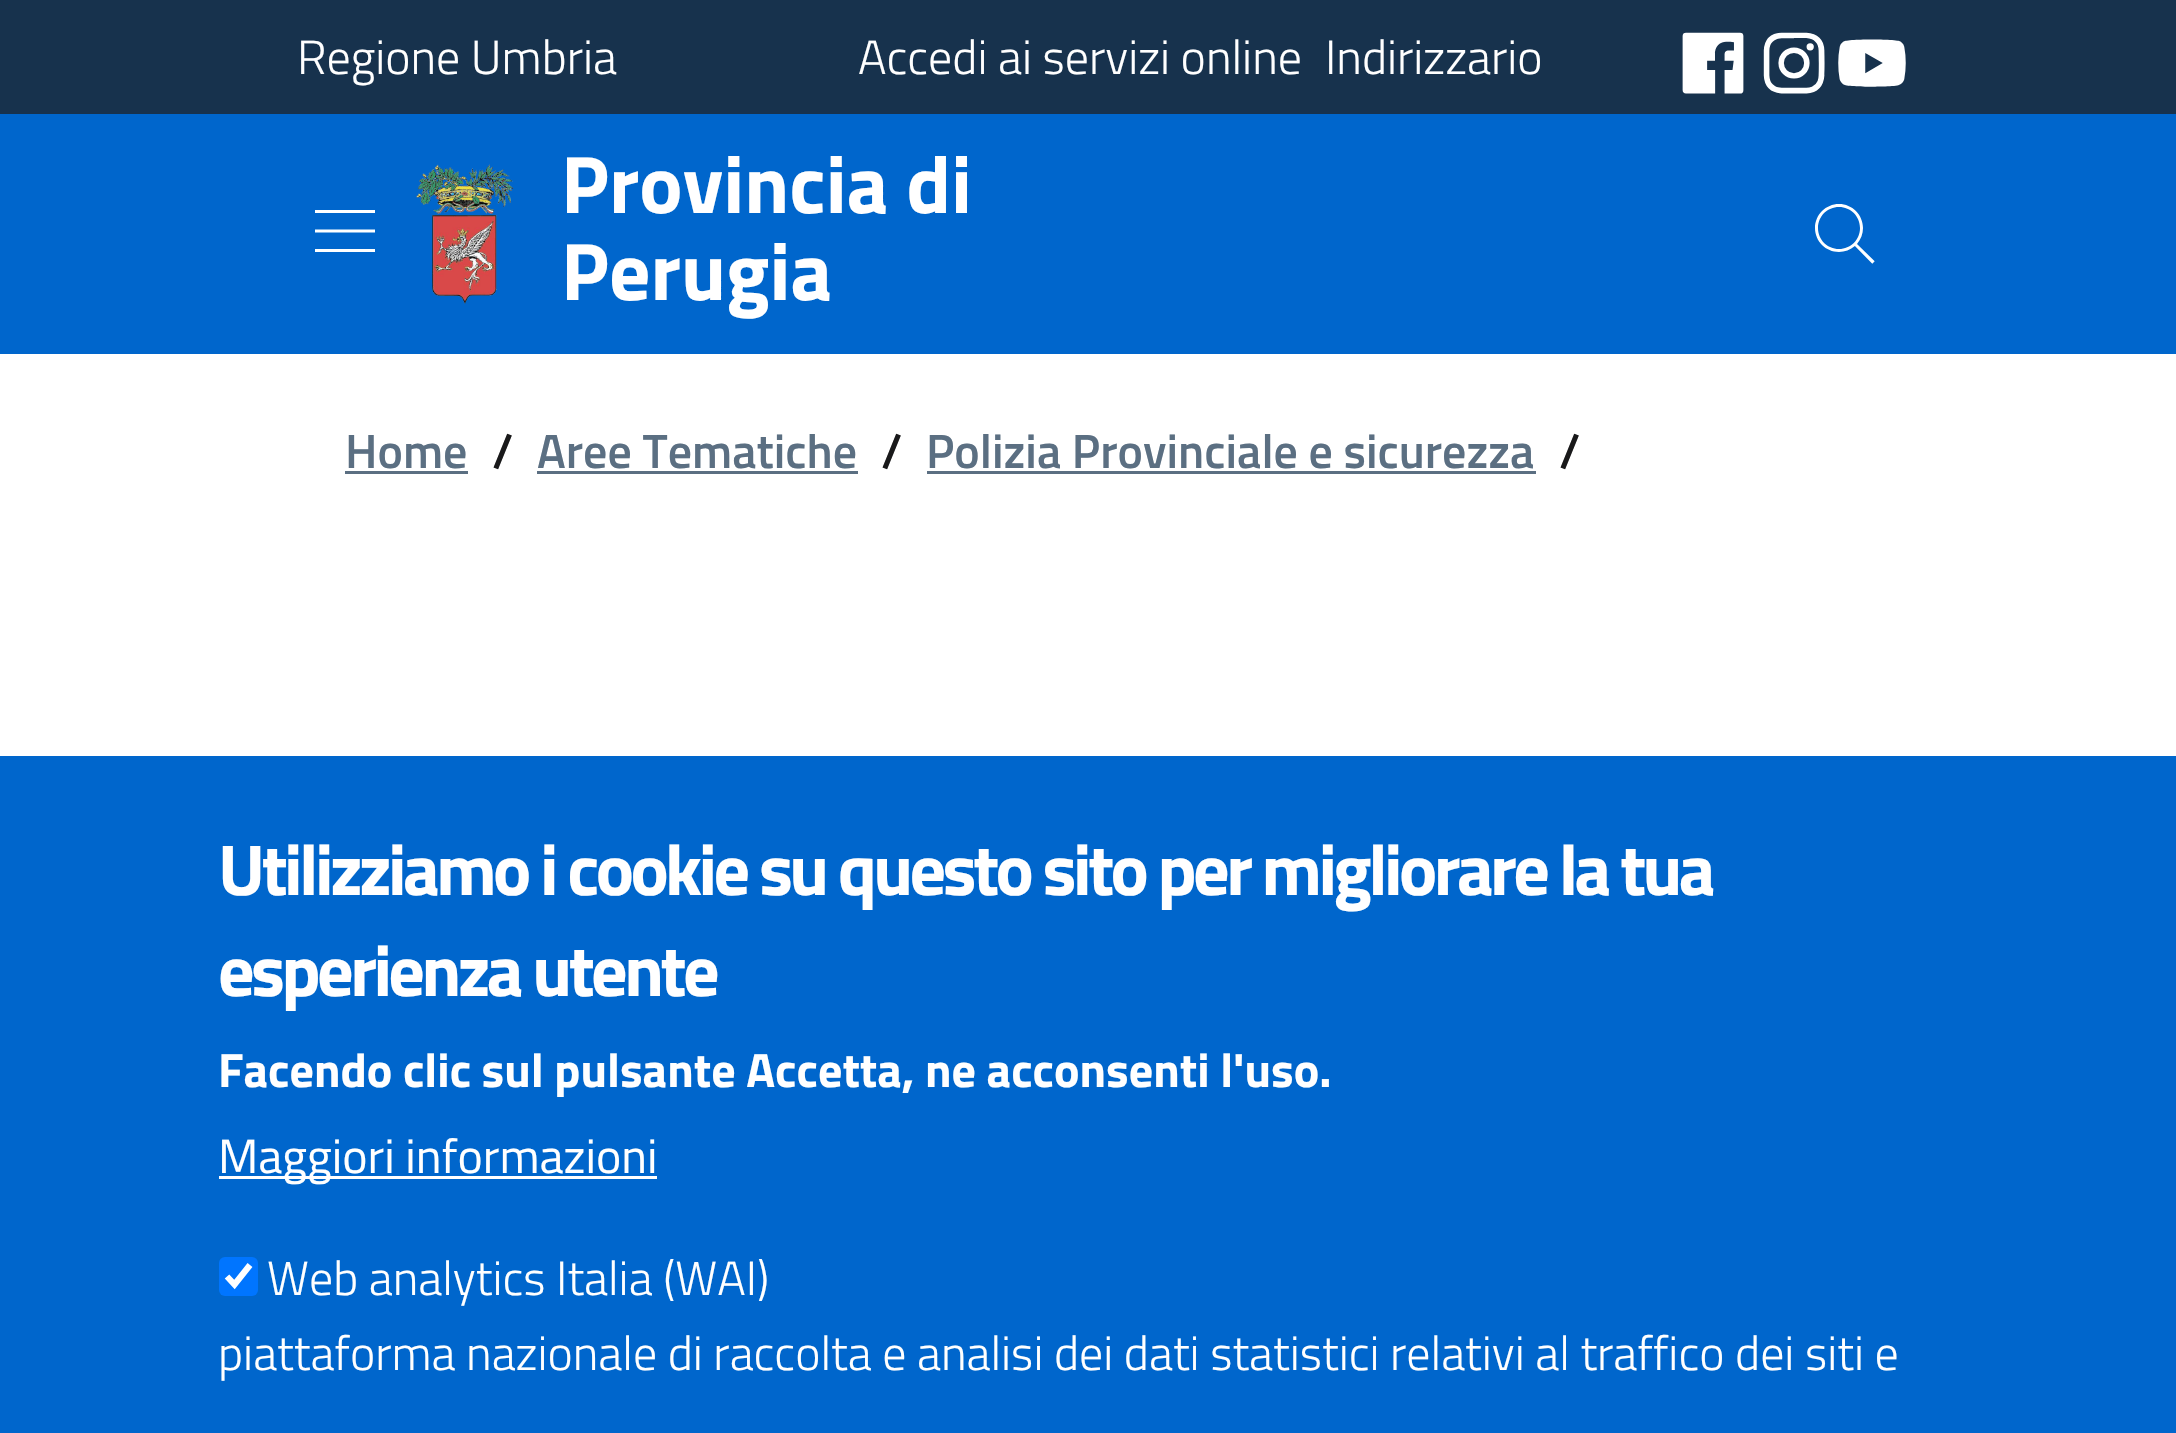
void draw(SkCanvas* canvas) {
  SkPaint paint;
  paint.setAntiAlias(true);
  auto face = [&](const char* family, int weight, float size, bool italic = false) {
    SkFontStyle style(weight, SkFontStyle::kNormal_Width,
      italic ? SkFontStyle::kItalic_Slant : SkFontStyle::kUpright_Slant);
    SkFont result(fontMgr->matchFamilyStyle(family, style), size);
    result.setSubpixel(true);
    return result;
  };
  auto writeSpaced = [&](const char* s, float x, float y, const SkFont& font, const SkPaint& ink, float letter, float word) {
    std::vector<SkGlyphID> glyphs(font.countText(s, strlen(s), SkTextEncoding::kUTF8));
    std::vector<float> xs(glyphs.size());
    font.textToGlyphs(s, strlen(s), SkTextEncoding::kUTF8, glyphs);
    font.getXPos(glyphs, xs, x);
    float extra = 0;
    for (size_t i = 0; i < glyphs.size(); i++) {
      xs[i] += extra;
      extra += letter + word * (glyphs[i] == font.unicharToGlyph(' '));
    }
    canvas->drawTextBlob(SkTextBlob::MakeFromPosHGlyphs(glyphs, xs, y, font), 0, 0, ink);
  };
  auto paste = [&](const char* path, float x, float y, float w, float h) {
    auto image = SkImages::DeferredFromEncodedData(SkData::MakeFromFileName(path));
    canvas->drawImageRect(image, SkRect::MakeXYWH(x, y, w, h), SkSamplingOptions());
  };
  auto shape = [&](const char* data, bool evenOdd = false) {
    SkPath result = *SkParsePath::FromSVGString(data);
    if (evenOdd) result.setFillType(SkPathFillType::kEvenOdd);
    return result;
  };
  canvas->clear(0xffffffff);
  paint.setColor(0xff17324d);
  canvas->drawRect(SkRect::MakeXYWH(0, 0, 2176, 114), paint);
  paste("img/1.png", 1682, 32, 62, 62);
  paste("img/2.png", 1763, 32, 62, 62);
  paste("img/3.png", 1838, 39, 68, 48);
  paint.setColor(0xff0066cc);
  canvas->drawRect(SkRect::MakeXYWH(0, 114, 2176, 240), paint);
  paste("img/4.png", 315, 210, 60, 42);
  paste("img/5.png", 416, 164, 98, 140);
  paste("img/6.png", 1815, 204, 60, 60);
  {
    const struct { float x, y, w, h; SkColor color; } items[] = {
      {345, 471, 123, 3, 0xff5b6f82},
      {537, 471, 321, 3, 0xff5b6f82},
      {927, 471, 609, 3, 0xff5b6f82},
      {0, 756, 2176, 677, 0xff0066cc},
      {219, 1176, 438, 3, 0xffffffff},
    };
    for (auto [x, y, w, h, color] : items) {
      paint.setColor(color);
      canvas->drawRect(SkRect::MakeXYWH(x, y, w, h), paint);
    }
  }
  paint.setColor(0xff0075ff);
  canvas->drawRoundRect(SkRect::MakeXYWH(219, 1257, 39, 39), 6, 6, paint);
  paint.setStroke(true);
  paint.setStrokeWidth(6.2f);
  paint.setColor(0xffffffff);
  canvas->drawPath(shape("M227 1276.5L234.5 1284.5L250 1265"), paint);
  auto f0 = face("Titillium Web", 300, 48);
  paint.setStroke(false);
  {
    const struct { const char* s; float x, y; } items[] = {
      {"Regione Umbria", 297, 74},
      {"Accedi ai servizi online", 858, 74},
      {"Indirizzario", 1325, 74},
    };
    for (auto [s, x, y] : items) {
      canvas->drawString(s, x, y, f0, paint);
    }
  }
  auto f1 = face("Titillium Web", 700, 81.5f);
  canvas->drawString("Provincia di", 561, 213, f1, paint);
  canvas->drawString("Perugia", 561, 300, f1, paint);
  auto f2 = face("Titillium Web", 600, 48);
  paint.setColor(0xff5b6f82);
  canvas->drawString("Home", 345, 468, f2, paint);
  paint.setColor(0xff19191a);
  canvas->drawString("/", 492, 468, f2, paint);
  paint.setColor(0xff5b6f82);
  canvas->drawString("Aree Tematiche", 537, 468, f2, paint);
  paint.setColor(0xff19191a);
  canvas->drawString("/", 881, 468, f2, paint);
  paint.setColor(0xff5b6f82);
  canvas->drawString("Polizia Provinciale e sicurezza", 926, 468, f2, paint);
  paint.setColor(0xff19191a);
  canvas->drawString("/", 1559, 468, f2, paint);
  auto f3 = face("Titillium Web", 700, 72);
  paint.setColor(0xffffffff);
  writeSpaced("Utilizziamo i cookie su questo sito per migliorare la tua", 218, 895, f3, paint, -3.6f, 0);
  writeSpaced("esperienza utente", 218, 996, f3, paint, -3.6f, 0);
  auto f4 = face("Titillium Web", 700, 48);
  canvas->drawString("Facendo clic sul pulsante Accetta, ne acconsenti l'uso.", 218, 1087, f4, paint);
  auto f5 = face("Titillium Web", 400, 48);
  canvas->drawString("Maggiori informazioni", 218, 1173, f5, paint);
  canvas->drawString("Web analytics Italia (WAI)", 267, 1295, f0, paint);
  canvas->drawString("piattaforma nazionale di raccolta e analisi dei dati statistici relativi al traffico dei siti e", 218, 1370, f0, paint);
}
